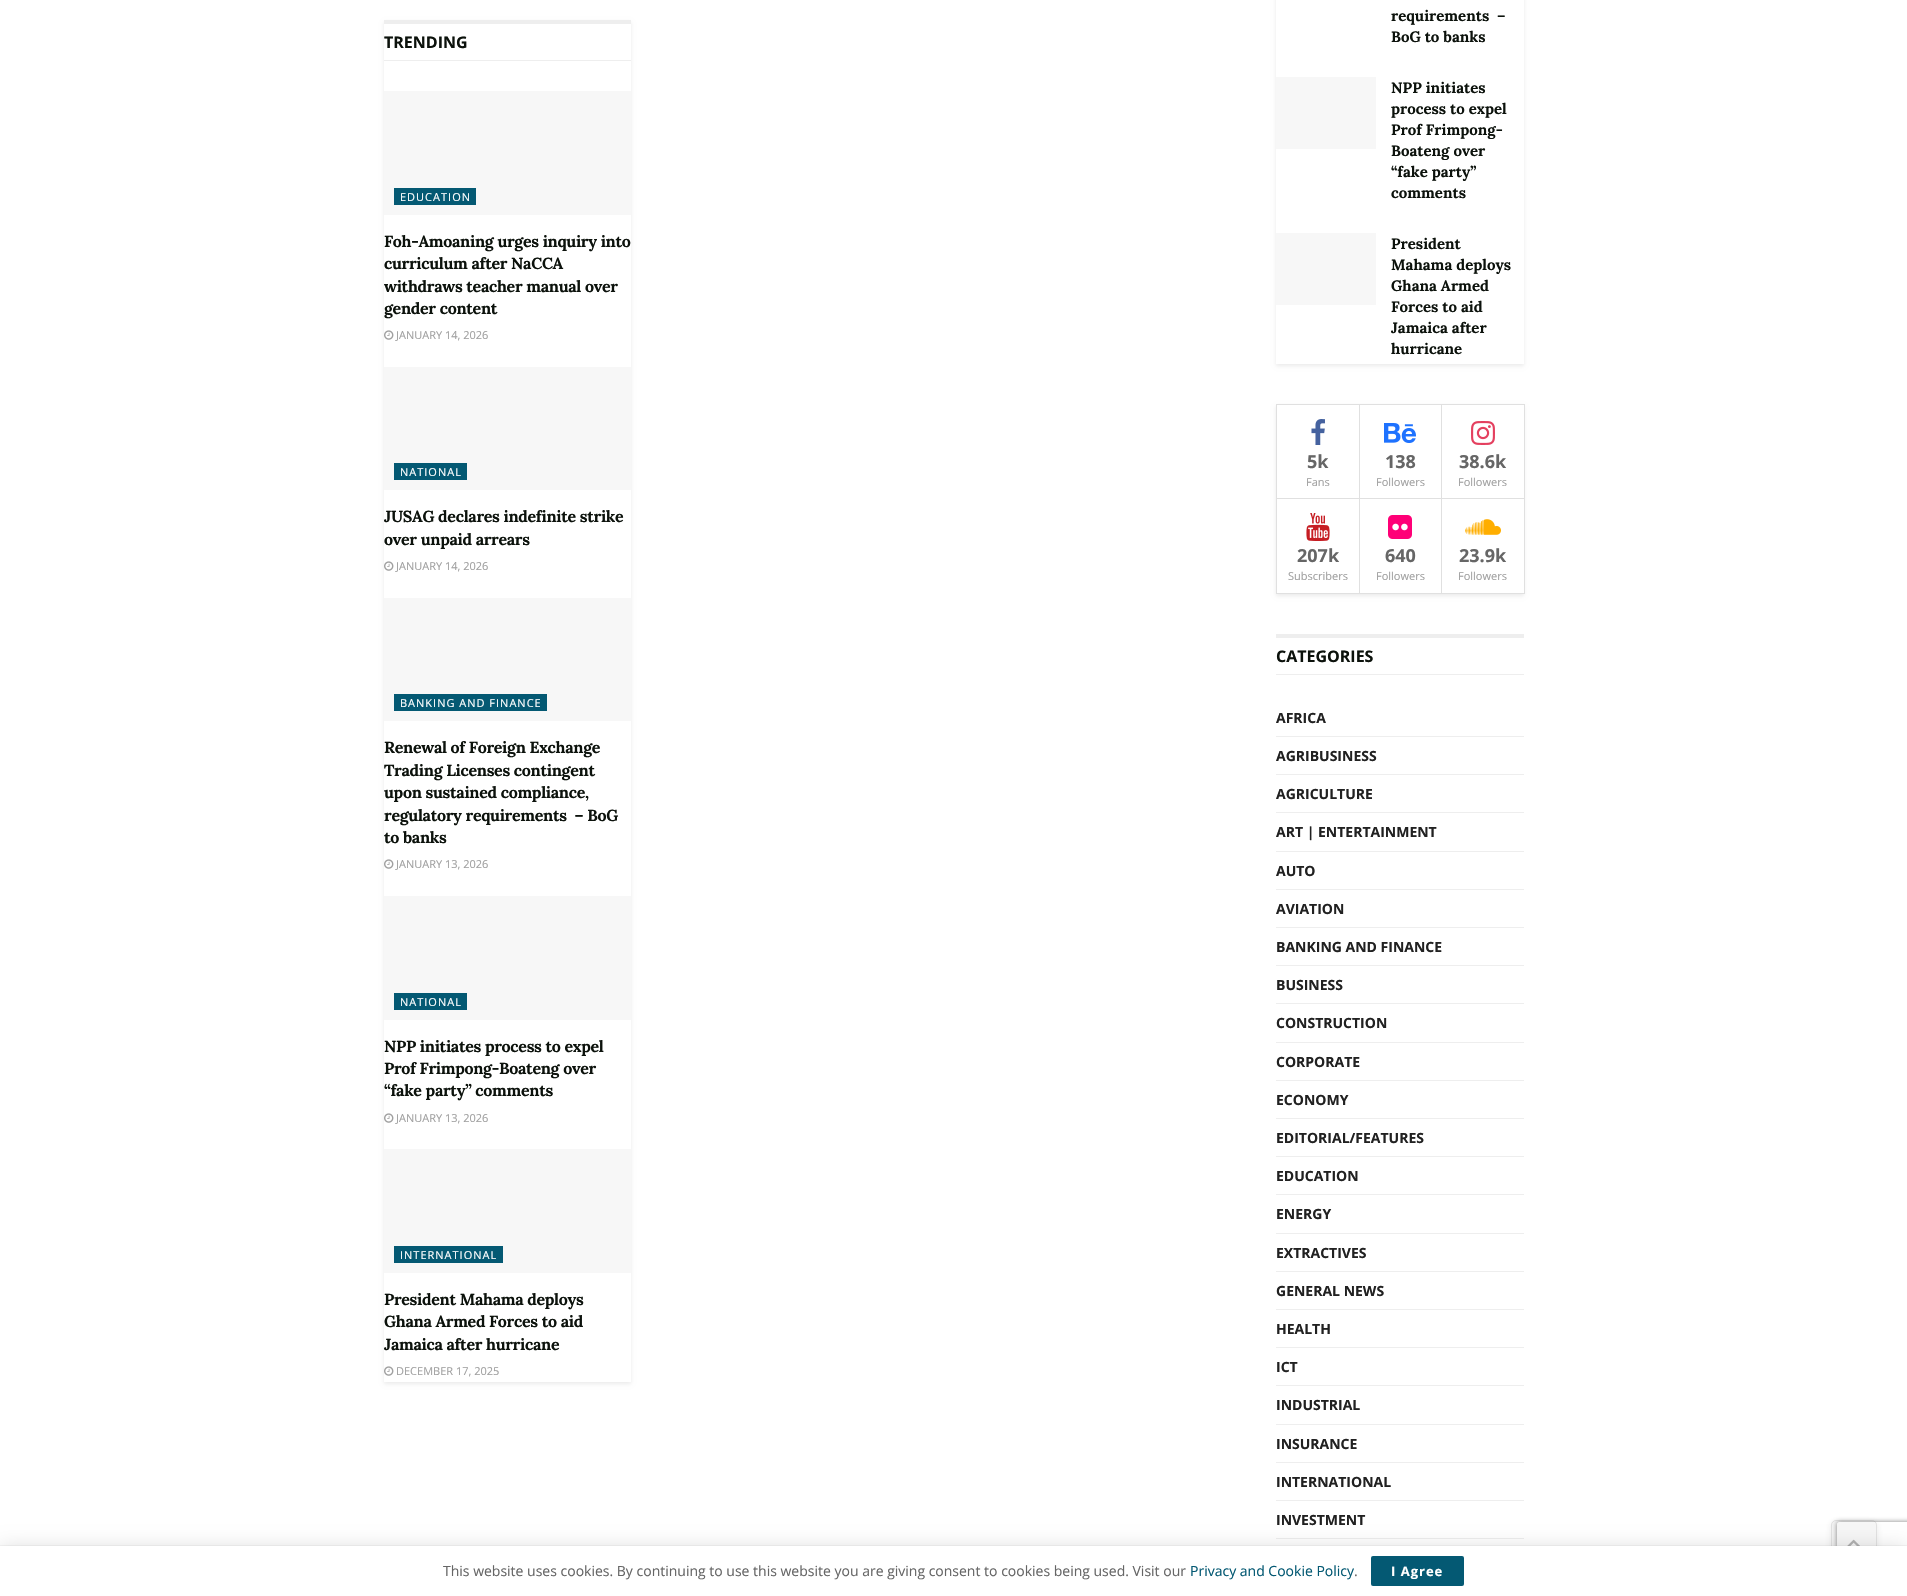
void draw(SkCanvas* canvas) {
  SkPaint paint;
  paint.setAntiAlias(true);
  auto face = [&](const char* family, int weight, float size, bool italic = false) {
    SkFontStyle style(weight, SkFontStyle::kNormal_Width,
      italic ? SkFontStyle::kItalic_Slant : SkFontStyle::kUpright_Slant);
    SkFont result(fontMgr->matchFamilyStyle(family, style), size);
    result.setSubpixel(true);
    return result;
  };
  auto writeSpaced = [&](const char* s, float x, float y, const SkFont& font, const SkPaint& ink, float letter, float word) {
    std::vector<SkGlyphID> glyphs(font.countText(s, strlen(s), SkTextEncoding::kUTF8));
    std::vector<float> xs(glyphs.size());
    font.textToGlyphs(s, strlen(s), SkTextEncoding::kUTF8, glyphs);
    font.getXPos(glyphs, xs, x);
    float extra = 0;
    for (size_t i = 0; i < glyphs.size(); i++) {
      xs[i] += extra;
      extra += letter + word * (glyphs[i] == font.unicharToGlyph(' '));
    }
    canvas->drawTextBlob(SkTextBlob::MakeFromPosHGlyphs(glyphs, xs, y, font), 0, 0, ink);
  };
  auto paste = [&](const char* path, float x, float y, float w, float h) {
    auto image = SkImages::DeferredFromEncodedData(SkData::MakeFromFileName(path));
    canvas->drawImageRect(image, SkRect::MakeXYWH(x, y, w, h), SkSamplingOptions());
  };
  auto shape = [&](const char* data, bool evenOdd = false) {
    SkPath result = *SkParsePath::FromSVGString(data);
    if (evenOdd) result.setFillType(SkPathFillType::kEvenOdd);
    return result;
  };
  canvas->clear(0xffffffff);
  canvas->save();
  canvas->clipPath(shape("M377 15H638V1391H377ZM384 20H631V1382H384Z", true), true);
  paint.setColor(0x14000000);
  paint.setMaskFilter(SkMaskFilter::MakeBlur(kNormal_SkBlurStyle, 2));
  canvas->drawRect(SkRect::MakeXYWH(384, 22, 247, 1362), paint);
  paint.setMaskFilter(nullptr);
  canvas->restore();
  {
    const struct { float x, y, w, h; SkColor color; } items[] = {
      {384, 20, 247, 4, 0xffeeeeee},
      {384, 60, 247, 1, 0xffeeeeee},
      {384, 91, 247, 124, 0xfff7f7f7},
      {394, 188, 82, 17, 0xff045973},
    };
    for (auto [x, y, w, h, color] : items) {
      paint.setColor(color);
      canvas->drawRect(SkRect::MakeXYWH(x, y, w, h), paint);
    }
  }
  paste("img/1.png", 384, 330, 10, 10);
  paint.setColor(0xfff7f7f7);
  canvas->drawRect(SkRect::MakeXYWH(384, 367, 247, 123), paint);
  paint.setColor(0xff045973);
  canvas->drawRect(SkRect::MakeXYWH(394, 463, 73, 17), paint);
  paste("img/1.png", 384, 561, 10, 10);
  paint.setColor(0xfff7f7f7);
  canvas->drawRect(SkRect::MakeXYWH(384, 598, 247, 123), paint);
  paint.setColor(0xff045973);
  canvas->drawRect(SkRect::MakeXYWH(394, 694, 153, 17), paint);
  paste("img/1.png", 384, 859, 10, 10);
  paint.setColor(0xfff7f7f7);
  canvas->drawRect(SkRect::MakeXYWH(384, 896, 247, 124), paint);
  paint.setColor(0xff045973);
  canvas->drawRect(SkRect::MakeXYWH(394, 993, 73, 17), paint);
  paste("img/1.png", 384, 1113, 10, 10);
  paint.setColor(0xfff7f7f7);
  canvas->drawRect(SkRect::MakeXYWH(384, 1149, 247, 124), paint);
  paint.setColor(0xff045973);
  canvas->drawRect(SkRect::MakeXYWH(394, 1246, 109, 17), paint);
  paste("img/1.png", 384, 1366, 10, 10);
  canvas->save();
  canvas->clipPath(shape("M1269 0H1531V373H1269ZM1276-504H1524V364H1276Z", true), true);
  paint.setColor(0x14000000);
  paint.setMaskFilter(SkMaskFilter::MakeBlur(kNormal_SkBlurStyle, 2));
  canvas->drawRect(SkRect::MakeXYWH(1276, -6, 248, 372), paint);
  paint.setMaskFilter(nullptr);
  canvas->restore();
  paint.setColor(0xfff7f7f7);
  canvas->drawRect(SkRect::MakeXYWH(1276, 77, 100, 72), paint);
  canvas->drawRect(SkRect::MakeXYWH(1276, 233, 100, 72), paint);
  canvas->save();
  canvas->clipPath(shape("M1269 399H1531V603H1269ZM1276 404H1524V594H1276Z", true), true);
  paint.setColor(0x14000000);
  paint.setMaskFilter(SkMaskFilter::MakeBlur(kNormal_SkBlurStyle, 2));
  canvas->drawRect(SkRect::MakeXYWH(1276, 406, 248, 190), paint);
  paint.setMaskFilter(nullptr);
  canvas->restore();
  paint.setStroke(true);
  paint.setStrokeWidth(1);
  paint.setColor(0xffe0e0e0);
  canvas->drawRect(SkRect::MakeXYWH(1276.5f, 404.5f, 83, 94), paint);
  paste("img/2.png", 1311, 419, 14, 26);
  canvas->drawRect(SkRect::MakeXYWH(1359.5f, 404.5f, 82, 94), paint);
  paste("img/3.png", 1384, 423, 32, 20);
  canvas->drawRect(SkRect::MakeXYWH(1441.5f, 404.5f, 83, 94), paint);
  paste("img/4.png", 1471, 421, 24, 24);
  canvas->drawRect(SkRect::MakeXYWH(1276.5f, 498.5f, 83, 95), paint);
  paste("img/5.png", 1306, 513, 24, 28);
  canvas->drawRect(SkRect::MakeXYWH(1359.5f, 498.5f, 82, 95), paint);
  paste("img/6.png", 1388, 515, 24, 24);
  canvas->drawRect(SkRect::MakeXYWH(1441.5f, 498.5f, 83, 95), paint);
  paste("img/7.png", 1465, 519, 36, 16);
  paint.setStroke(false);
  {
    const struct { float x, y, w, h; SkColor color; } items[] = {
      {1276, 634, 248, 4, 0xffeeeeee},
      {1276, 674, 248, 1, 0xffeeeeee},
      {1276, 736, 248, 1, 0xffeeeeee},
      {1276, 774, 248, 1, 0xffeeeeee},
      {1276, 812, 248, 1, 0xffeeeeee},
      {1276, 851, 248, 1, 0xffeeeeee},
      {1276, 889, 248, 1, 0xffeeeeee},
      {1276, 927, 248, 1, 0xffeeeeee},
      {1276, 965, 248, 1, 0xffeeeeee},
      {1276, 1003, 248, 1, 0xffeeeeee},
      {1276, 1042, 248, 1, 0xffeeeeee},
      {1276, 1080, 248, 1, 0xffeeeeee},
      {1276, 1118, 248, 1, 0xffeeeeee},
      {1276, 1156, 248, 1, 0xffeeeeee},
      {1276, 1194, 248, 1, 0xffeeeeee},
      {1276, 1233, 248, 1, 0xffeeeeee},
      {1276, 1271, 248, 1, 0xffeeeeee},
      {1276, 1309, 248, 1, 0xffeeeeee},
      {1276, 1347, 248, 1, 0xffeeeeee},
      {1276, 1385, 248, 1, 0xffeeeeee},
      {1276, 1424, 248, 1, 0xffeeeeee},
      {1276, 1462, 248, 1, 0xffeeeeee},
      {1276, 1500, 248, 1, 0xffeeeeee},
      {1276, 1538, 248, 1, 0xffeeeeee},
    };
    for (auto [x, y, w, h, color] : items) {
      paint.setColor(color);
      canvas->drawRect(SkRect::MakeXYWH(x, y, w, h), paint);
    }
  }
  canvas->save();
  canvas->clipPath(shape("M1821 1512H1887V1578H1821ZM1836 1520H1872C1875 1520 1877 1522 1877 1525V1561C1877 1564 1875 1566 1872 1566H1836C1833 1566 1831 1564 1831 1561V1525C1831 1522 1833 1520 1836 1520Z", true), true);
  paint.setColor(0x1a333333);
  paint.setMaskFilter(SkMaskFilter::MakeBlur(kNormal_SkBlurStyle, 3));
  canvas->drawRoundRect(SkRect::MakeXYWH(1831, 1522, 46, 46), 5, 5, paint);
  paint.setMaskFilter(nullptr);
  canvas->restore();
  paint.setColor(0x26c4c4c4);
  canvas->drawRoundRect(SkRect::MakeXYWH(1831, 1520, 46, 46), 5, 5, paint);
  paint.setStroke(true);
  paint.setColor(0x1c333333);
  canvas->drawRoundRect(SkRect::MakeXYWH(1831.5f, 1520.5f, 45, 45), 4.5f, 4.5f, paint);
  paste("img/8.png", 1847, 1539, 13, 7);
  paint.setStroke(false);
  paint.setColor(0x26000000);
  paint.setMaskFilter(SkMaskFilter::MakeBlur(kNormal_SkBlurStyle, 10));
  canvas->drawRect(SkRect::MakeXYWH(0, 1548, 1907, 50), paint);
  paint.setMaskFilter(nullptr);
  paint.setColor(0x33000000);
  paint.setMaskFilter(SkMaskFilter::MakeBlur(kNormal_SkBlurStyle, 0.5f));
  canvas->drawRect(SkRect::MakeXYWH(0, 1546, 1907, 50), paint);
  paint.setMaskFilter(nullptr);
  canvas->save();
  canvas->clipPath(shape("M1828 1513H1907V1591H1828ZM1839 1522H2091C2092 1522 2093 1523 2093 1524V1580C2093 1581 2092 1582 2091 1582H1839C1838 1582 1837 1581 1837 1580V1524C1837 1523 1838 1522 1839 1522Z", true), true);
  paint.setColor(0xff808080);
  paint.setMaskFilter(SkMaskFilter::MakeBlur(kNormal_SkBlurStyle, 2.5f));
  canvas->drawRoundRect(SkRect::MakeXYWH(1837, 1522, 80, 60), 2, 2, paint);
  paint.setMaskFilter(nullptr);
  canvas->restore();
  paint.setColor(0xffffffff);
  canvas->drawRect(SkRect::MakeXYWH(0, 1546, 1907, 50), paint);
  paint.setColor(0xff045973);
  canvas->drawRoundRect(SkRect::MakeXYWH(1371, 1556, 93, 30), 2, 2, paint);
  auto f0 = face("Open Sans", 700, 16);
  paint.setColor(0xff0c120c);
  canvas->drawString("TRENDING", 384, 48, f0, paint);
  auto f1 = face("Open Sans", 400, 11);
  paint.setColor(0xffffffff);
  writeSpaced("EDUCATION", 400, 201, f1, paint, 1, 0);
  auto f2 = face("Lora", 700, 16);
  paint.setColor(0xff0c120c);
  {
    const struct { const char* s; float x, y; } items[] = {
      {"Foh-Amoaning urges inquiry into", 384, 247},
      {"curriculum after NaCCA", 384, 269},
      {"withdraws teacher manual over", 384, 292},
      {"gender content", 384, 314},
    };
    for (auto [s, x, y] : items) {
      writeSpaced(s, x, y, f2, paint, -0.3f, 0);
    }
  }
  paint.setColor(0xffa0a0a0);
  canvas->drawString("JANUARY 14, 2026", 396, 339, f1, paint);
  paint.setColor(0xffffffff);
  writeSpaced("NATIONAL", 400, 476, f1, paint, 1, 0);
  canvas->save();
  canvas->clipRect(SkRect::MakeXYWH(384, 91, 247, 1291));
  paint.setColor(0xff0c120c);
  writeSpaced("JUSAG declares indefinite strike", 384, 522, f2, paint, -0.3f, 0);
  canvas->restore();
  writeSpaced("over unpaid arrears", 384, 545, f2, paint, -0.3f, 0);
  paint.setColor(0xffa0a0a0);
  canvas->drawString("JANUARY 14, 2026", 396, 570, f1, paint);
  paint.setColor(0xffffffff);
  writeSpaced("BANKING AND FINANCE", 400, 707, f1, paint, 1, 0);
  paint.setColor(0xff0c120c);
  writeSpaced("Renewal of Foreign Exchange", 384, 753, f2, paint, -0.3f, 0);
  canvas->save();
  canvas->clipRect(SkRect::MakeXYWH(384, 91, 247, 1291));
  writeSpaced("Trading Licenses contingent", 384, 776, f2, paint, -0.3f, 0);
  canvas->restore();
  {
    const struct { const char* s; float x, y; } items[] = {
      {"upon sustained compliance,", 384, 798},
      {"regulatory requirements  – BoG", 384, 821},
      {"to banks", 384, 843},
    };
    for (auto [s, x, y] : items) {
      writeSpaced(s, x, y, f2, paint, -0.3f, 0);
    }
  }
  paint.setColor(0xffa0a0a0);
  canvas->drawString("JANUARY 13, 2026", 396, 868, f1, paint);
  paint.setColor(0xffffffff);
  writeSpaced("NATIONAL", 400, 1006, f1, paint, 1, 0);
  paint.setColor(0xff0c120c);
  {
    const struct { const char* s; float x, y; } items[] = {
      {"NPP initiates process to expel", 384, 1052},
      {"Prof Frimpong-Boateng over", 384, 1074},
      {"“fake party” comments", 384, 1096},
    };
    for (auto [s, x, y] : items) {
      writeSpaced(s, x, y, f2, paint, -0.3f, 0);
    }
  }
  paint.setColor(0xffa0a0a0);
  canvas->drawString("JANUARY 13, 2026", 396, 1122, f1, paint);
  paint.setColor(0xffffffff);
  writeSpaced("INTERNATIONAL", 400, 1259, f1, paint, 1, 0);
  paint.setColor(0xff0c120c);
  writeSpaced("President Mahama deploys", 384, 1305, f2, paint, -0.3f, 0);
  writeSpaced("Ghana Armed Forces to aid", 384, 1327, f2, paint, -0.3f, 0);
  canvas->save();
  canvas->clipRect(SkRect::MakeXYWH(384, 91, 247, 1291));
  writeSpaced("Jamaica after hurricane", 384, 1350, f2, paint, -0.3f, 0);
  canvas->restore();
  paint.setColor(0xffa0a0a0);
  canvas->drawString("DECEMBER 17, 2025", 396, 1375, f1, paint);
  auto f3 = face("Lora", 700, 15);
  paint.setColor(0xff0c120c);
  {
    const struct { const char* s; float x, y; } items[] = {
      {"requirements  –", 1391, 21},
      {"BoG to banks", 1391, 42},
      {"NPP initiates", 1391, 93},
      {"process to expel", 1391, 114},
      {"Prof Frimpong-", 1391, 135},
      {"Boateng over", 1391, 156},
      {"“fake party”", 1391, 177},
      {"comments", 1391, 198},
      {"President", 1391, 249},
      {"Mahama deploys", 1391, 270},
      {"Ghana Armed", 1391, 291},
      {"Forces to aid", 1391, 312},
      {"Jamaica after", 1391, 333},
      {"hurricane", 1391, 354},
    };
    for (auto [s, x, y] : items) {
      canvas->drawString(s, x, y, f3, paint);
    }
  }
  auto f4 = face("Open Sans", 700, 18);
  paint.setColor(0xff666666);
  canvas->drawString("5k", 1307, 468, f4, paint);
  paint.setColor(0xffa0a0a0);
  canvas->drawString("Fans", 1306, 486, f1, paint);
  paint.setColor(0xff666666);
  canvas->drawString("138", 1385, 468, f4, paint);
  paint.setColor(0xffa0a0a0);
  canvas->drawString("Followers", 1376, 486, f1, paint);
  paint.setColor(0xff666666);
  canvas->drawString("38.6k", 1459, 468, f4, paint);
  paint.setColor(0xffa0a0a0);
  canvas->drawString("Followers", 1458, 486, f1, paint);
  paint.setColor(0xff666666);
  canvas->drawString("207k", 1297, 562, f4, paint);
  paint.setColor(0xffa0a0a0);
  canvas->drawString("Subscribers", 1288, 580, f1, paint);
  paint.setColor(0xff666666);
  canvas->drawString("640", 1385, 562, f4, paint);
  paint.setColor(0xffa0a0a0);
  canvas->drawString("Followers", 1376, 580, f1, paint);
  paint.setColor(0xff666666);
  canvas->drawString("23.9k", 1459, 562, f4, paint);
  paint.setColor(0xffa0a0a0);
  canvas->drawString("Followers", 1458, 580, f1, paint);
  paint.setColor(0xff0c120c);
  canvas->drawString("CATEGORIES", 1276, 662, f0, paint);
  auto f5 = face("Open Sans", 700, 14);
  paint.setColor(0xff212121);
  {
    const struct { const char* s; float x, y; } items[] = {
      {"AFRICA", 1276, 723},
      {"AGRIBUSINESS", 1276, 761},
      {"AGRICULTURE", 1276, 799},
      {"ART | ENTERTAINMENT", 1276, 837},
      {"AUTO", 1276, 876},
      {"AVIATION", 1276, 914},
      {"BANKING AND FINANCE", 1276, 952},
      {"BUSINESS", 1276, 990},
      {"CONSTRUCTION", 1276, 1028},
      {"CORPORATE", 1276, 1067},
      {"ECONOMY", 1276, 1105},
      {"EDITORIAL/FEATURES", 1276, 1143},
      {"EDUCATION", 1276, 1181},
      {"ENERGY", 1276, 1219},
      {"EXTRACTIVES", 1276, 1258},
      {"GENERAL NEWS", 1276, 1296},
      {"HEALTH", 1276, 1334},
      {"ICT", 1276, 1372},
      {"INDUSTRIAL", 1276, 1410},
      {"INSURANCE", 1276, 1449},
      {"INTERNATIONAL", 1276, 1487},
      {"INVESTMENT", 1276, 1525},
    };
    for (auto [s, x, y] : items) {
      canvas->drawString(s, x, y, f5, paint);
    }
  }
  auto f6 = face("Open Sans", 400, 14);
  paint.setColor(0xff666666);
  canvas->drawString("This website uses cookies. By continuing to use this website you are giving consent to cookies being used. Visit our", 443, 1576, f6, paint);
  paint.setColor(0xff045973);
  canvas->drawString("Privacy and Cookie Policy", 1190, 1576, f6, paint);
  paint.setColor(0xff666666);
  canvas->drawString(".", 1354, 1576, f6, paint);
  auto f7 = face("Open Sans", 700, 13);
  paint.setColor(0xffffffff);
  writeSpaced("I Agree", 1391, 1576, f7, paint, 1, 0);
}
